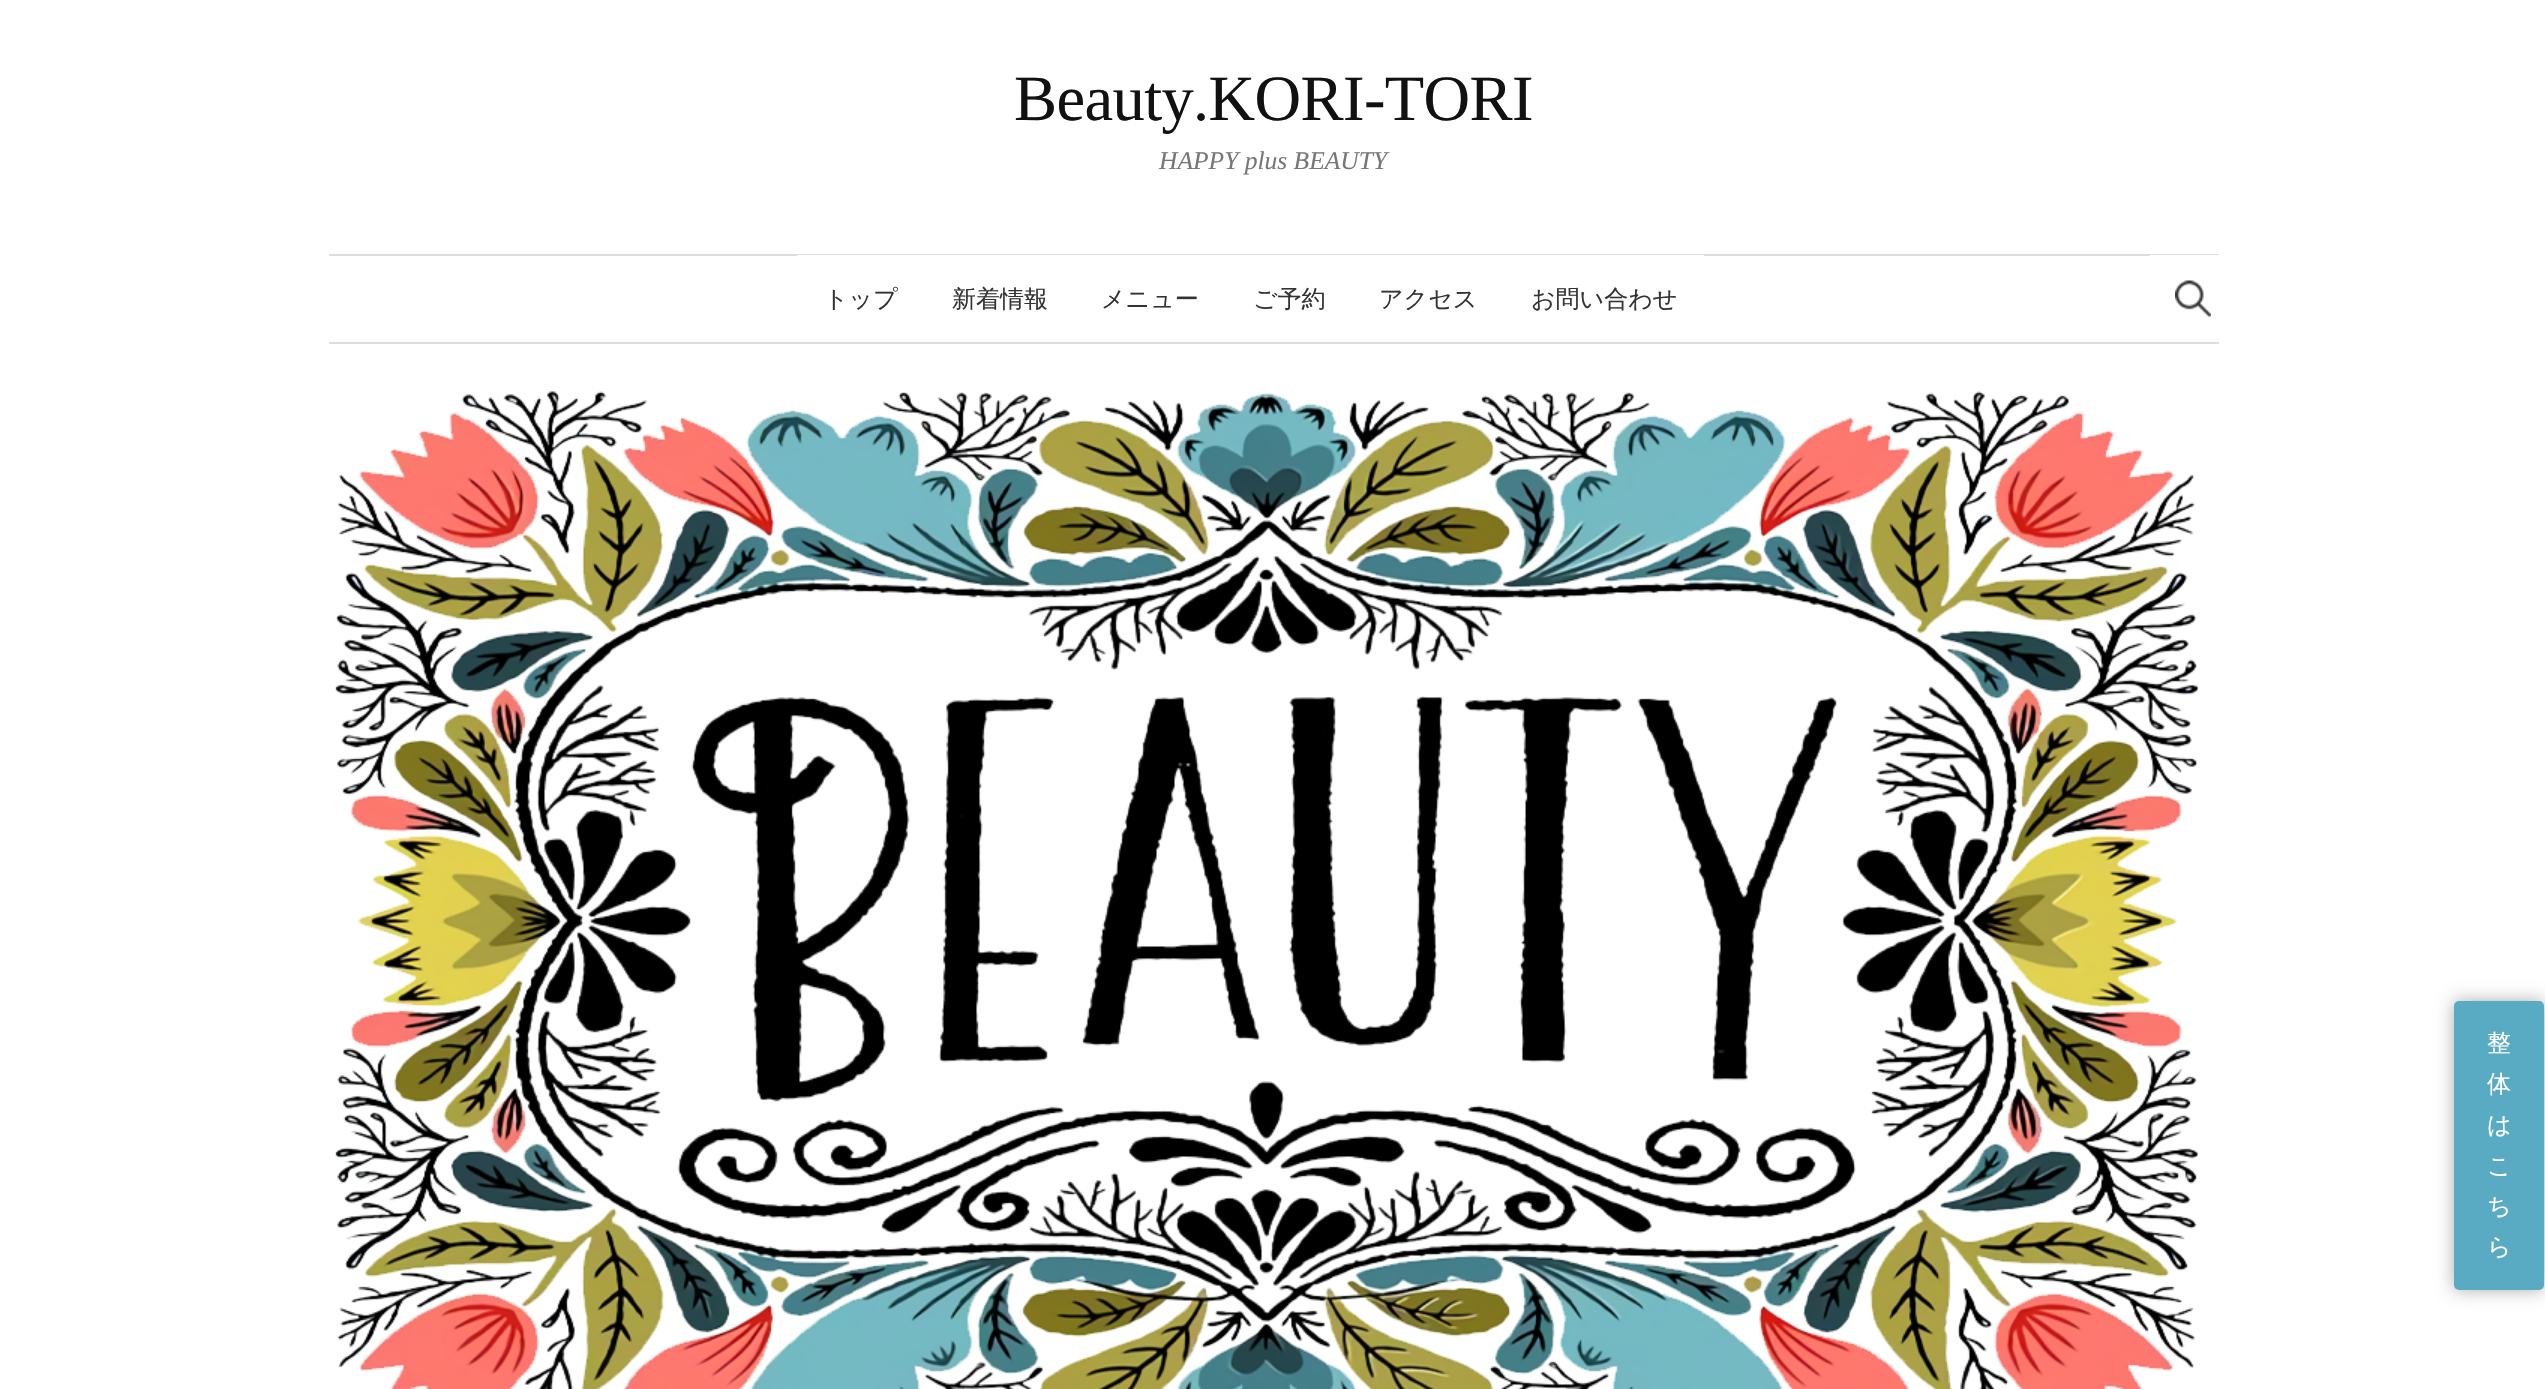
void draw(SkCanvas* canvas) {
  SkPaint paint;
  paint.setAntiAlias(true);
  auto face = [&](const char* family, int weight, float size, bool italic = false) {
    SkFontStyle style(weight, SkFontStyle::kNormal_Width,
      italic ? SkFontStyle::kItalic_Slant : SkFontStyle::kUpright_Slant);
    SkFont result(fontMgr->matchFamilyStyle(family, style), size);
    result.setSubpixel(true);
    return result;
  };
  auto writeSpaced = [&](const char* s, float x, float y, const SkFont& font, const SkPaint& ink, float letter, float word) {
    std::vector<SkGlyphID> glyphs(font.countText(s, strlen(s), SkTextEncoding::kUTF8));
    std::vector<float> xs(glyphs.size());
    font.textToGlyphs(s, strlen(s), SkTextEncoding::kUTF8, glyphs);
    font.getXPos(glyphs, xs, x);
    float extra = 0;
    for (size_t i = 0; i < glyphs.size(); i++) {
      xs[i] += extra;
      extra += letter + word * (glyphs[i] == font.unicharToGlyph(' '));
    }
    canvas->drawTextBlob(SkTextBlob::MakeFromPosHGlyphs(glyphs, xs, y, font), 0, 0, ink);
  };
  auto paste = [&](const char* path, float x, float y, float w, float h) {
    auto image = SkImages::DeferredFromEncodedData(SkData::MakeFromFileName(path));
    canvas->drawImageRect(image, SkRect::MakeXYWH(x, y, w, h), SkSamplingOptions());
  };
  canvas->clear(0xffffffff);
  {
    const struct { float x, y, w, h; SkColor color; } items[] = {
      {329, 254, 1890, 2, 0xffdddddd},
      {329, 342, 1890, 2, 0xffdddddd},
      {797, 255, 907, 1, 0xffffffff},
      {2150, 255, 69, 1, 0xffffffff},
    };
    for (auto [x, y, w, h, color] : items) {
      paint.setColor(color);
      canvas->drawRect(SkRect::MakeXYWH(x, y, w, h), paint);
    }
  }
  paste("img/1.png", 2175, 280, 36, 37);
  paste("img/2.png", 335, 391, 1865, 998);
  paint.setColor(0xffadadad);
  paint.setMaskFilter(SkMaskFilter::MakeBlur(kNormal_SkBlurStyle, 9));
  canvas->drawRoundRect(SkRect::MakeXYWH(2454, 1001, 90, 289), 5, 5, paint);
  paint.setMaskFilter(nullptr);
  paint.setColor(0xff59abc3);
  canvas->drawRoundRect(SkRect::MakeXYWH(2454, 1001, 90, 289), 5, 5, paint);
  auto f0 = face("Liberation Serif", 400, 64.5f);
  paint.setColor(0xff111111);
  writeSpaced("Beauty.KORI-TORI", 1014, 120, f0, paint, -0.6f, 0);
  auto f1 = face("Liberation Serif", 400, 25.5f, true);
  paint.setColor(0xff777777);
  canvas->drawString("HAPPY plus BEAUTY", 1159, 169, f1, paint);
  auto f2 = face("WenQuanYi Zen Hei", 500, 24);
  paint.setColor(0xff333333);
  {
    const struct { const char* s; float x, y; } items[] = {
      {"トップ", 824, 307},
      {"新着情報", 952, 307},
      {"メニュー", 1101, 307},
      {"ご予約", 1253, 307},
      {"アクセス", 1379, 307},
      {"お問い合わせ", 1531, 307},
    };
    for (auto [s, x, y] : items) {
      canvas->drawString(s, x, y, f2, paint);
    }
  }
  paint.setColor(0xffffffff);
  {
    const struct { const char* s; float x, y; } items[] = {
      {"整", 2487, 1051},
      {"体", 2487, 1092},
      {"は", 2487, 1133},
      {"こ", 2487, 1174},
      {"ち", 2487, 1214},
      {"ら", 2487, 1255},
    };
    for (auto [s, x, y] : items) {
      canvas->drawString(s, x, y, f2, paint);
    }
  }
}
